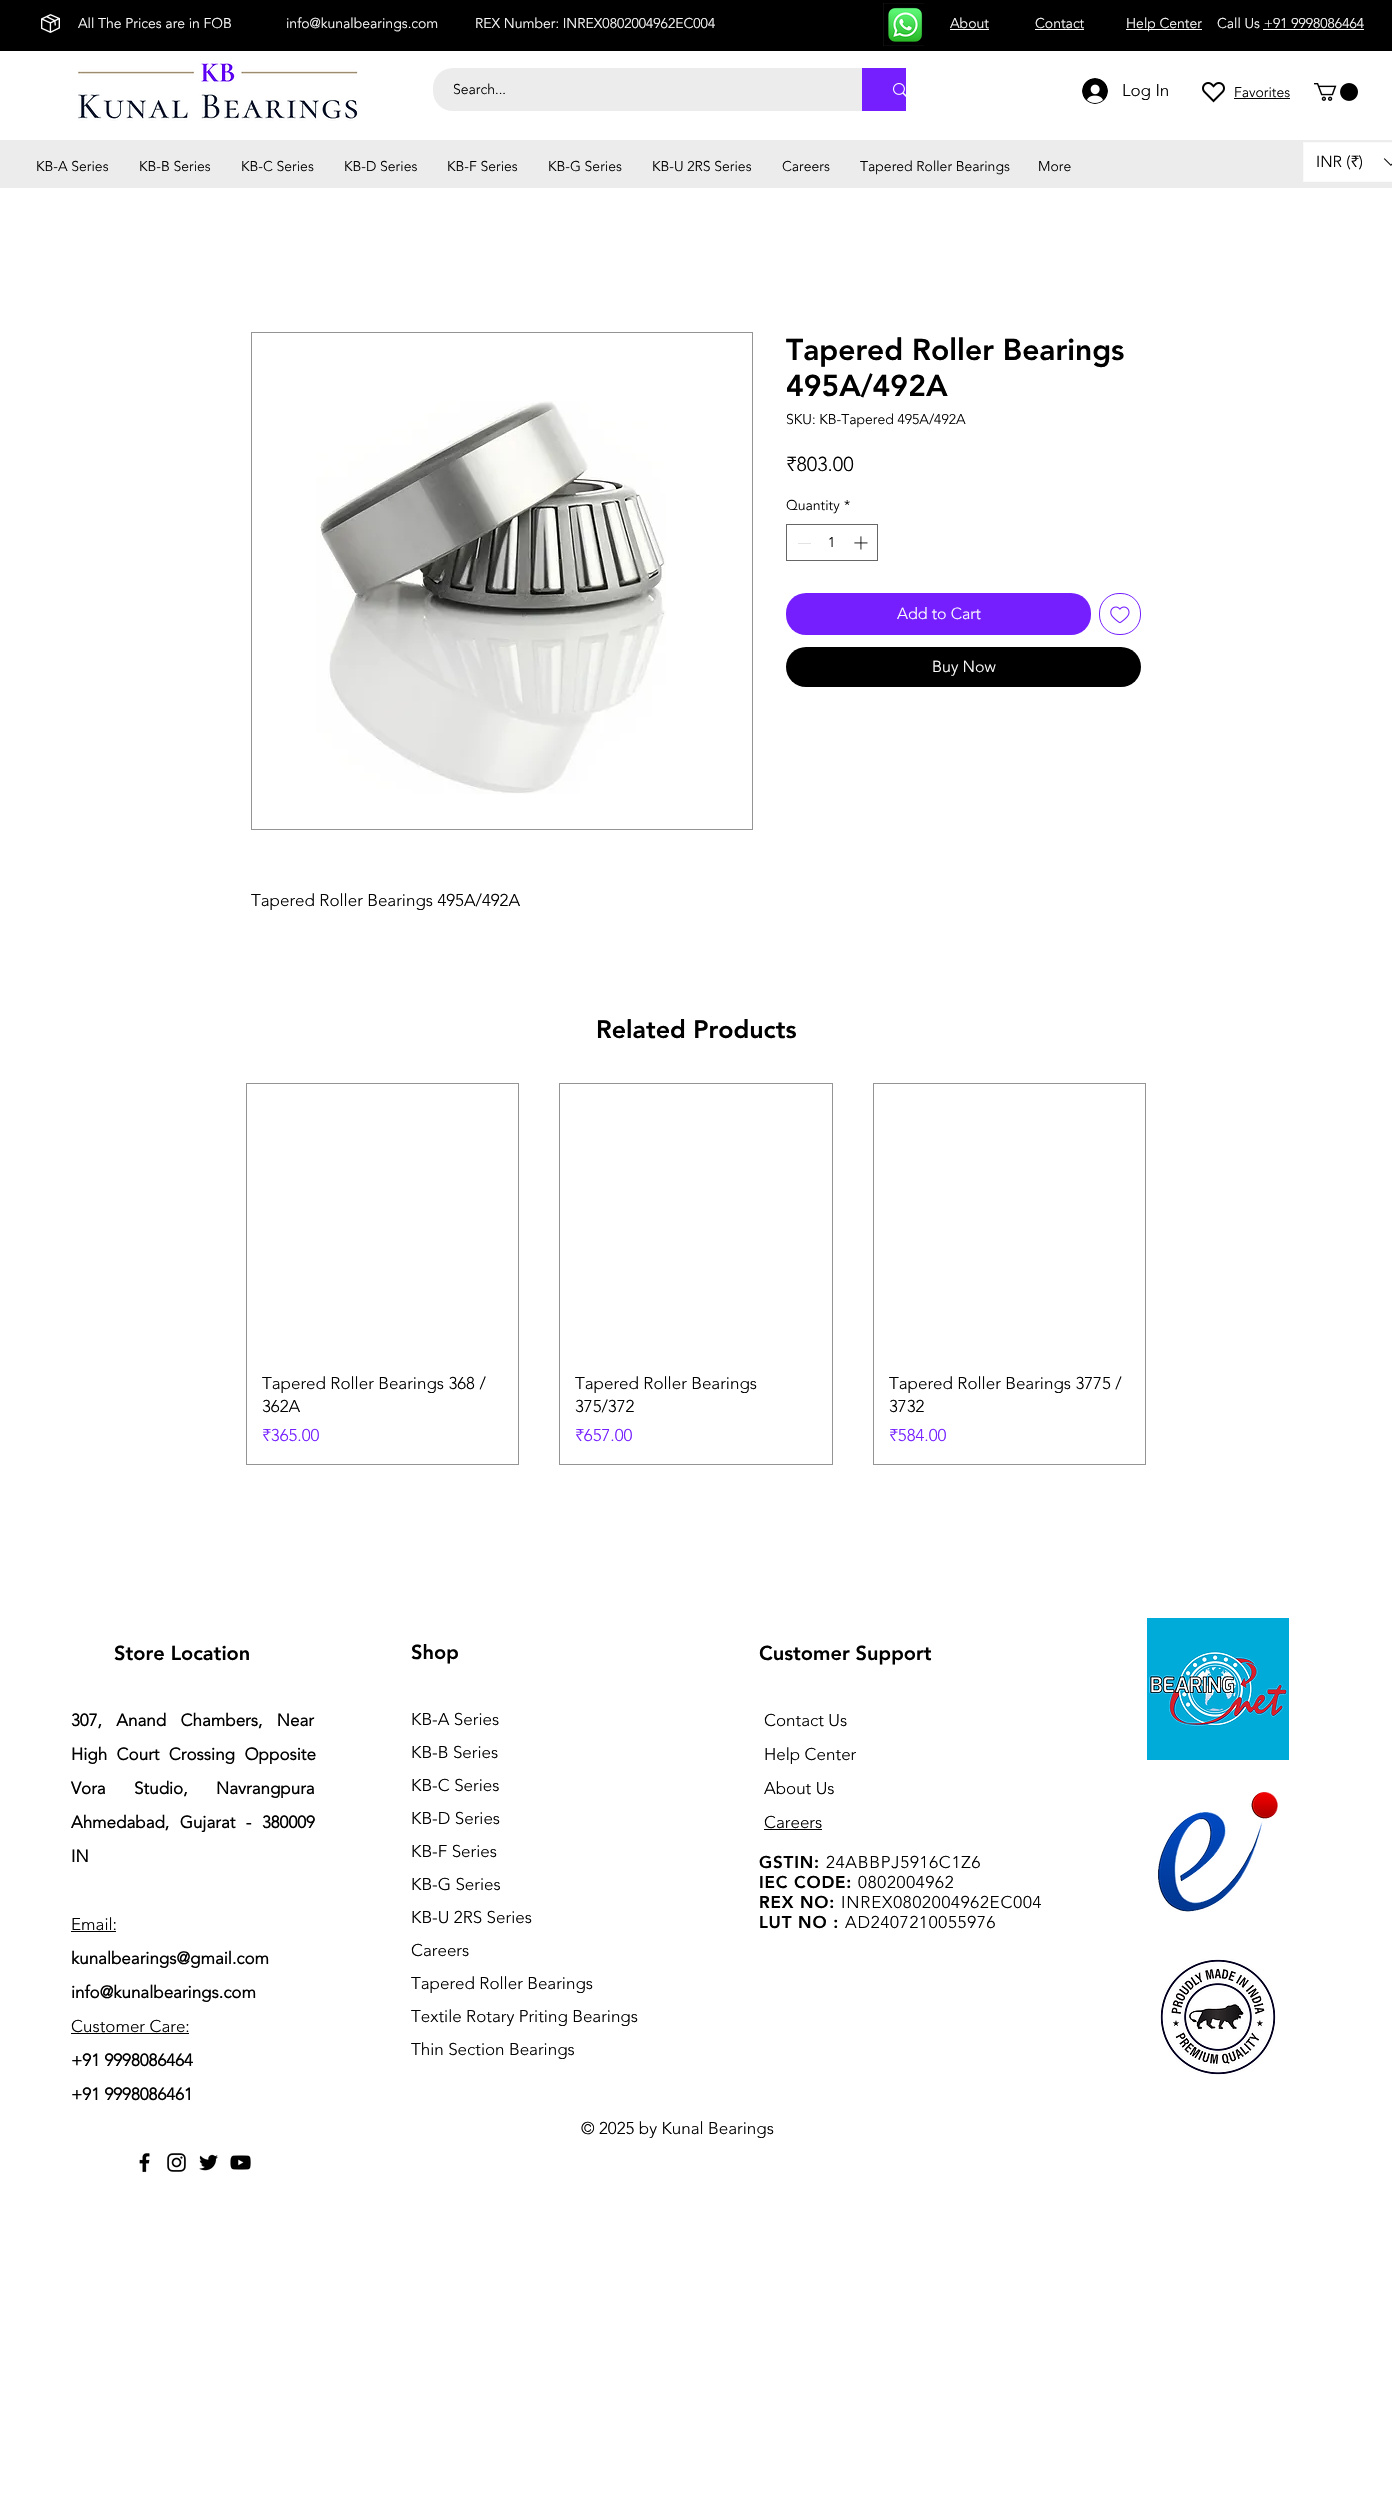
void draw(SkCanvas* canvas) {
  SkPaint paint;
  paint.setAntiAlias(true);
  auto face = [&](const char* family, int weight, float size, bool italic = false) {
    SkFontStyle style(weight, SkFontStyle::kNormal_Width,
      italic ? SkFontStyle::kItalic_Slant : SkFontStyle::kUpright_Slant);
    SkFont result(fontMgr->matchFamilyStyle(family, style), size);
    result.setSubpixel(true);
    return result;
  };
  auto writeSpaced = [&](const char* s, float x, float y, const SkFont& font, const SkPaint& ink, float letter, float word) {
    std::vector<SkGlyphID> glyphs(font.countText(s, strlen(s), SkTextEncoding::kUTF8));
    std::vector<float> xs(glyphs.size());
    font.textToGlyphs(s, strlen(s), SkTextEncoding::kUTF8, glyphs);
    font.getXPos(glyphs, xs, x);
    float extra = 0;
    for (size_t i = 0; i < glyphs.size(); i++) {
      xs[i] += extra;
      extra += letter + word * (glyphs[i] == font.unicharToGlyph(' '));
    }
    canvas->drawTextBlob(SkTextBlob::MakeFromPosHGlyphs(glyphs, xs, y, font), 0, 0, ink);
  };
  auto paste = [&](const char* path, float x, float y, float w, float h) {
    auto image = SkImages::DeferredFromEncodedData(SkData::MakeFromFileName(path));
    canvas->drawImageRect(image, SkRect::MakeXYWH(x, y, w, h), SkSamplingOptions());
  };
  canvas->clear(0xffffffff);
  paint.setColor(0xff000000);
  canvas->drawRect(SkRect::MakeXYWH(0, 0, 1392, 51), paint);
  paste("img/1.png", 41, 14, 19, 19);
  paste("img/2.png", 883, 3, 41, 43);
  {
    const struct { float x, y, w, h; SkColor color; } items[] = {
      {950, 29, 39, 1, 0xffffffff},
      {1035, 29, 49, 1, 0xffffffff},
      {1126, 29, 76, 1, 0xffffffff},
      {1263, 29, 101, 1, 0xffffffff},
    };
    for (auto [x, y, w, h, color] : items) {
      paint.setColor(color);
      canvas->drawRect(SkRect::MakeXYWH(x, y, w, h), paint);
    }
  }
  paste("img/3.png", 78, 61, 281, 60);
  paint.setColor(0xffedecec);
  canvas->drawRoundRect(SkRect::MakeXYWH(433, 68, 505, 43), 20, 20, paint);
  paint.setColor(0xff751fff);
  canvas->drawRect(SkRect::MakeXYWH(862, 68, 44, 43), paint);
  paste("img/4.png", 893, 83, 13, 14);
  paint.setColor(0xffffffff);
  canvas->drawRect(SkRect::MakeXYWH(906, 68, 32, 43), paint);
  paste("img/5.png", 1082, 78, 26, 26);
  paste("img/6.png", 1202, 82, 23, 21);
  paint.setColor(0xff000000);
  canvas->drawRect(SkRect::MakeXYWH(1234, 98, 56, 1), paint);
  paste("img/7.png", 1314, 83, 44, 18);
  paint.setColor(0xffedecec);
  canvas->drawRect(SkRect::MakeXYWH(0, 140, 1392, 48), paint);
  paint.setColor(0xffffffff);
  canvas->drawRect(SkRect::MakeXYWH(1303.5f, 142.5f, 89, 39), paint);
  paint.setStroke(true);
  paint.setStrokeWidth(1);
  paint.setColor(0xfffafafa);
  canvas->drawRect(SkRect::MakeXYWH(1303.5f, 142.5f, 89, 39), paint);
  paste("img/8.png", 1383, 158, 9, 8);
  paint.setColor(0xff666666);
  canvas->drawRect(SkRect::MakeXYWH(786.5f, 524.5f, 91, 36), paint);
  paint.setStroke(false);
  paint.setColor(0xffe3e3e3);
  canvas->drawRect(SkRect::MakeXYWH(798, 543, 13, 1), paint);
  paste("img/9.png", 854, 536, 14, 14);
  paint.setColor(0xff751fff);
  canvas->drawRoundRect(SkRect::MakeXYWH(786, 593, 305, 42), 20, 20, paint);
  paint.setStroke(true);
  canvas->drawRoundRect(SkRect::MakeXYWH(1099.5f, 593.5f, 41, 41), 19.5f, 19.5f, paint);
  paste("img/10.png", 1110, 606, 20, 18);
  paint.setStroke(false);
  paint.setColor(0xff000000);
  canvas->drawRoundRect(SkRect::MakeXYWH(786, 647, 355, 40), 20, 20, paint);
  paint.setStroke(true);
  paint.setColor(0xff949494);
  canvas->drawRect(SkRect::MakeXYWH(251.5f, 332.5f, 501, 497), paint);
  paste("img/11.png", 316, 401, 350, 393);
  canvas->drawRect(SkRect::MakeXYWH(246.5f, 1083.5f, 272, 381), paint);
  canvas->drawRect(SkRect::MakeXYWH(559.5f, 1083.5f, 273, 381), paint);
  canvas->drawRect(SkRect::MakeXYWH(873.5f, 1083.5f, 272, 381), paint);
  paint.setStroke(false);
  paint.setColor(0xff000000);
  canvas->drawRect(SkRect::MakeXYWH(71, 1931, 45, 1), paint);
  canvas->drawRect(SkRect::MakeXYWH(71, 2033, 118, 1), paint);
  paste("img/12.png", 139, 2153, 11, 20);
  paste("img/13.png", 167, 2153, 19, 19);
  paste("img/14.png", 199, 2154, 19, 17);
  paste("img/15.png", 230, 2155, 21, 15);
  canvas->drawRect(SkRect::MakeXYWH(764, 1829, 58, 1), paint);
  paste("img/16.png", 1147, 1618, 142, 142);
  paste("img/17.png", 1158, 1791, 120, 121);
  paste("img/18.png", 1160, 1959, 116, 116);
  auto f0 = face("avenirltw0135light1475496", 300, 14);
  paint.setColor(0xffffffff);
  {
    const struct { const char* s; float x, y; } items[] = {
      {"All The Prices are in FOB", 78, 28},
      {"info@kunalbearings.com", 286, 28},
      {"REX Number: INREX0802004962EC004", 475, 28},
      {"About", 950, 28},
      {"Contact", 1035, 28},
      {"Help Center", 1126, 28},
      {"Call Us +91 9998086464", 1217, 28},
    };
    for (auto [s, x, y] : items) {
      canvas->drawString(s, x, y, f0, paint);
    }
  }
  paint.setColor(0xff000000);
  canvas->drawString("Search...", 453, 94, f0, paint);
  auto f1 = face("avenirltw0135light1475496", 300, 17);
  canvas->drawString("Log In", 1122, 96, f1, paint);
  {
    const struct { const char* s; float x, y; } items[] = {
      {"Favorites", 1234, 97},
      {"KB-A Series", 36, 171},
      {"KB-B Series", 139, 171},
      {"KB-C Series", 241, 171},
      {"KB-D Series", 344, 171},
      {"KB-F Series", 447, 171},
      {"KB-G Series", 548, 171},
      {"KB-U 2RS Series", 652, 171},
      {"Careers", 782, 171},
      {"Tapered Roller Bearings", 860, 171},
      {"More", 1038, 171},
    };
    for (auto [s, x, y] : items) {
      canvas->drawString(s, x, y, f0, paint);
    }
  }
  auto f2 = face("avenirltw0135light1475496", 300, 16);
  canvas->drawString("INR (₹)", 1316, 167, f2, paint);
  auto f3 = face("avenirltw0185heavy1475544", 900, 30);
  canvas->drawString("Tapered Roller Bearings", 786, 360, f3, paint);
  canvas->drawString("495A/492A", 786, 396, f3, paint);
  canvas->drawString("SKU: KB-Tapered 495A/492A", 786, 424, f0, paint);
  auto f4 = face("avenirltw0135light1475496", 300, 20);
  canvas->drawString("₹803.00", 786, 471, f4, paint);
  {
    const struct { const char* s; float x, y; } items[] = {
      {"Quantity", 786, 510},
      {"*", 844, 510},
      {"1", 828, 547},
    };
    for (auto [s, x, y] : items) {
      canvas->drawString(s, x, y, f0, paint);
    }
  }
  paint.setColor(0xffffffff);
  canvas->drawString("Add to Cart", 897, 619, f2, paint);
  canvas->drawString("Buy Now", 932, 672, f2, paint);
  paint.setColor(0xff000000);
  canvas->drawString("Tapered Roller Bearings 495A/492A", 251, 906, f1, paint);
  auto f5 = face("avenirltw0185heavy1475544", 900, 25);
  canvas->drawString("Related Products", 596, 1038, f5, paint);
  canvas->drawString("Tapered Roller Bearings 368 /", 262, 1389, f1, paint);
  canvas->drawString("362A", 262, 1412, f1, paint);
  paint.setColor(0xff751fff);
  canvas->drawString("₹365.00", 262, 1441, f1, paint);
  paint.setColor(0xff000000);
  canvas->drawString("Tapered Roller Bearings", 575, 1389, f1, paint);
  canvas->drawString("375/372", 575, 1412, f1, paint);
  paint.setColor(0xff751fff);
  canvas->drawString("₹657.00", 575, 1441, f1, paint);
  paint.setColor(0xff000000);
  canvas->drawString("Tapered Roller Bearings 3775 /", 889, 1389, f1, paint);
  canvas->drawString("3732", 889, 1412, f1, paint);
  paint.setColor(0xff751fff);
  canvas->drawString("₹584.00", 889, 1441, f1, paint);
  auto f6 = face("avenirltw0185heavy1475544", 900, 20);
  paint.setColor(0xff000000);
  canvas->drawString("Store Location", 114, 1660, f6, paint);
  auto f7 = face("avenirltw0135light1475496", 700, 17);
  writeSpaced("307, Anand Chambers, Near", 71, 1726, f7, paint, 0, 10);
  writeSpaced("High Court Crossing Opposite", 71, 1760, f7, paint, 0, 5);
  writeSpaced("Vora Studio, Navrangpura", 71, 1794, f7, paint, 0, 24);
  writeSpaced("Ahmedabad, Gujarat - 380009", 71, 1828, f7, paint, 0, 6);
  canvas->drawString("IN", 71, 1862, f7, paint);
  canvas->drawString("Email:", 71, 1930, f1, paint);
  canvas->drawString("kunalbearings@gmail.com", 71, 1964, f7, paint);
  canvas->drawString("info@kunalbearings.com", 71, 1998, f7, paint);
  canvas->drawString("Customer Care:", 71, 2032, f1, paint);
  canvas->drawString("+91 9998086464", 71, 2066, f7, paint);
  canvas->drawString("+91 9998086461", 71, 2100, f7, paint);
  canvas->drawString("Shop", 411, 1659, f6, paint);
  {
    const struct { const char* s; float x, y; } items[] = {
      {"KB-A Series", 411, 1725},
      {"KB-B Series", 411, 1758},
      {"KB-C Series", 411, 1791},
      {"KB-D Series", 411, 1824},
      {"KB-F Series", 411, 1857},
      {"KB-G Series", 411, 1890},
      {"KB-U 2RS Series", 411, 1923},
      {"Careers", 411, 1956},
      {"Tapered Roller Bearings", 411, 1989},
      {"Textile Rotary Priting Bearings", 411, 2022},
      {"Thin Section Bearings", 411, 2055},
    };
    for (auto [s, x, y] : items) {
      canvas->drawString(s, x, y, f1, paint);
    }
  }
  canvas->drawString("Customer Support", 759, 1660, f6, paint);
  {
    const struct { const char* s; float x, y; } items[] = {
      {"Contact Us", 764, 1726},
      {"Help Center", 764, 1760},
      {"About Us", 764, 1794},
      {"Careers", 764, 1828},
    };
    for (auto [s, x, y] : items) {
      canvas->drawString(s, x, y, f1, paint);
    }
  }
  auto f8 = face("avenirltw0185heavy1475544", 900, 17);
  writeSpaced("GSTIN:", 759, 1868, f8, paint, 0.8f, 0);
  writeSpaced("24ABBPJ5916C1Z6", 826, 1868, f1, paint, 0.8f, 0);
  writeSpaced("IEC CODE:", 759, 1888, f8, paint, 0.8f, 0);
  writeSpaced("0802004962", 858, 1888, f1, paint, 0.8f, 0);
  writeSpaced("REX NO:", 759, 1908, f8, paint, 0.8f, 0);
  writeSpaced("INREX0802004962EC004", 841, 1908, f1, paint, 0.8f, 0);
  writeSpaced("LUT NO :", 759, 1928, f8, paint, 0.8f, 0);
  writeSpaced("AD2407210055976", 845, 1928, f1, paint, 0.8f, 0);
  canvas->drawString("© 2025 by Kunal Bearings", 581, 2134, f1, paint);
}
